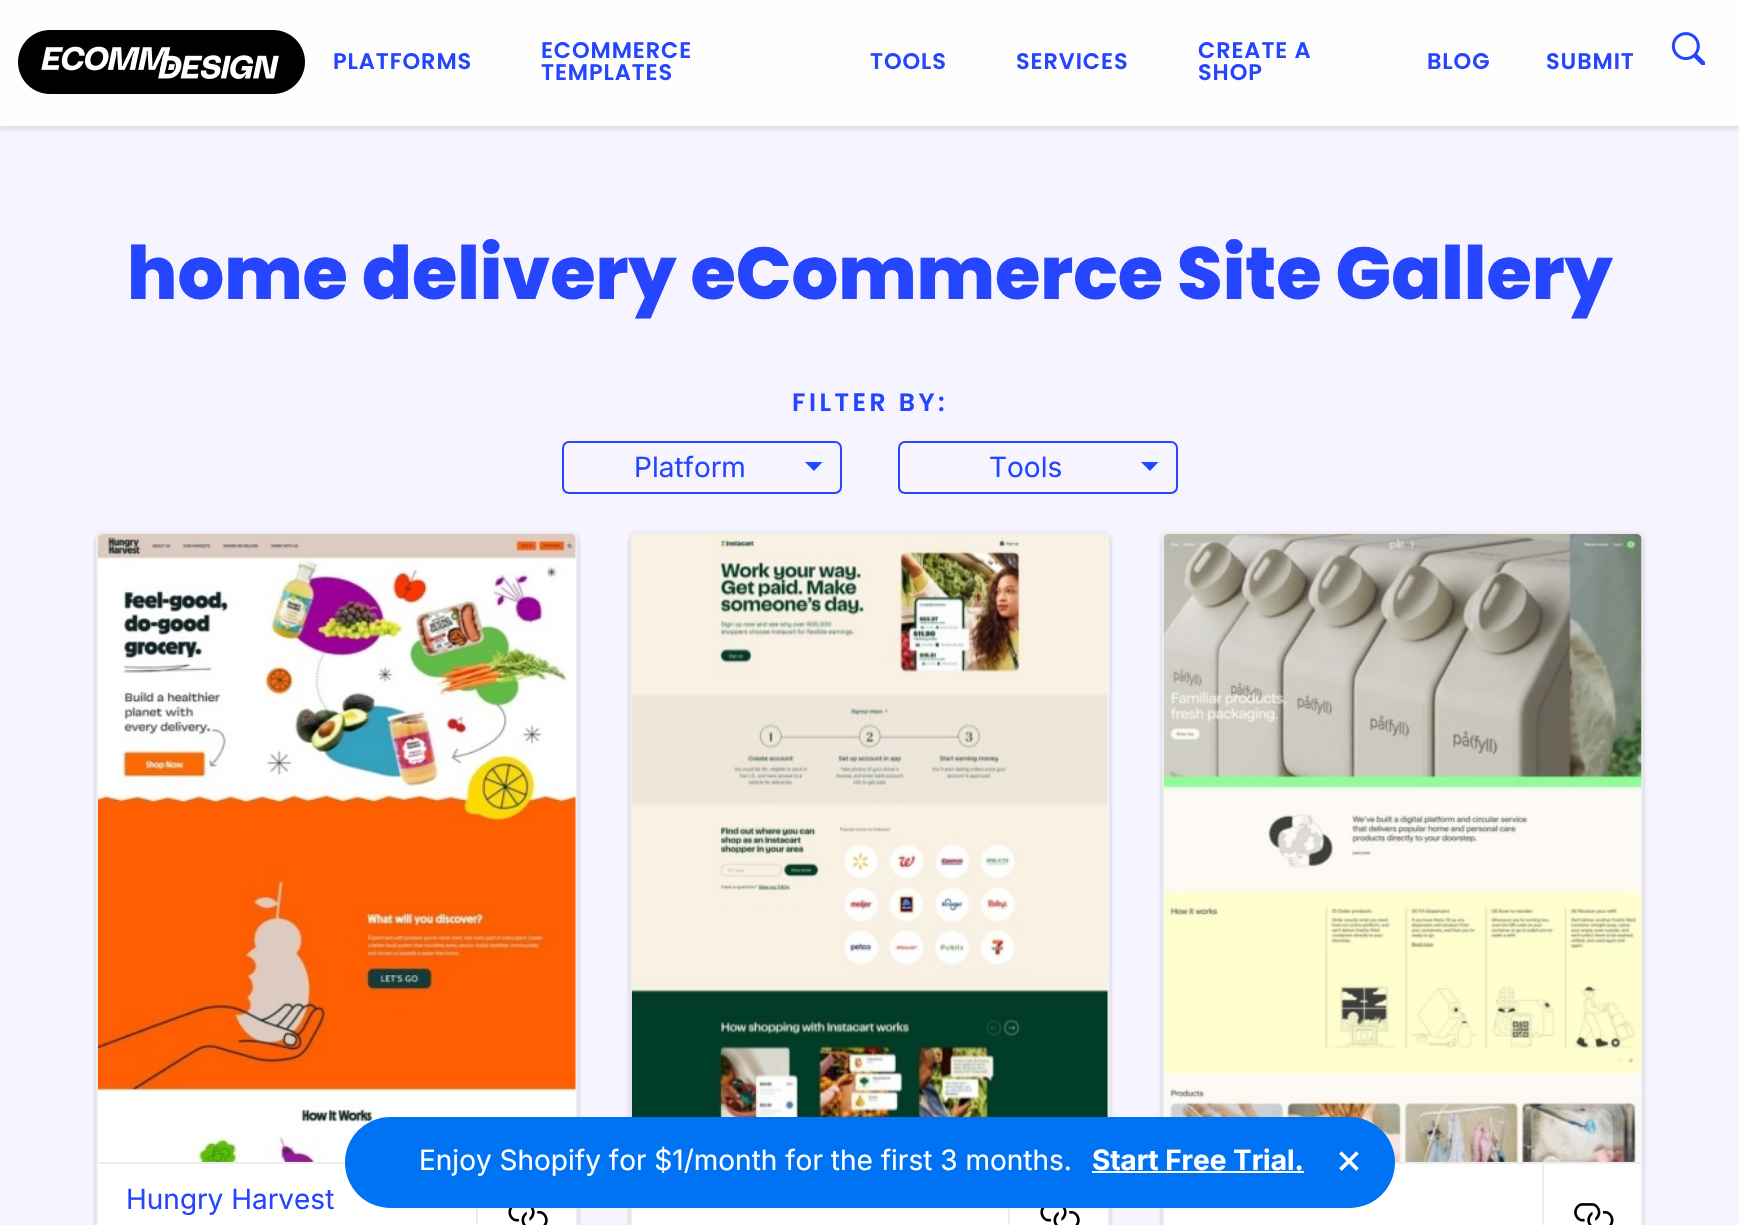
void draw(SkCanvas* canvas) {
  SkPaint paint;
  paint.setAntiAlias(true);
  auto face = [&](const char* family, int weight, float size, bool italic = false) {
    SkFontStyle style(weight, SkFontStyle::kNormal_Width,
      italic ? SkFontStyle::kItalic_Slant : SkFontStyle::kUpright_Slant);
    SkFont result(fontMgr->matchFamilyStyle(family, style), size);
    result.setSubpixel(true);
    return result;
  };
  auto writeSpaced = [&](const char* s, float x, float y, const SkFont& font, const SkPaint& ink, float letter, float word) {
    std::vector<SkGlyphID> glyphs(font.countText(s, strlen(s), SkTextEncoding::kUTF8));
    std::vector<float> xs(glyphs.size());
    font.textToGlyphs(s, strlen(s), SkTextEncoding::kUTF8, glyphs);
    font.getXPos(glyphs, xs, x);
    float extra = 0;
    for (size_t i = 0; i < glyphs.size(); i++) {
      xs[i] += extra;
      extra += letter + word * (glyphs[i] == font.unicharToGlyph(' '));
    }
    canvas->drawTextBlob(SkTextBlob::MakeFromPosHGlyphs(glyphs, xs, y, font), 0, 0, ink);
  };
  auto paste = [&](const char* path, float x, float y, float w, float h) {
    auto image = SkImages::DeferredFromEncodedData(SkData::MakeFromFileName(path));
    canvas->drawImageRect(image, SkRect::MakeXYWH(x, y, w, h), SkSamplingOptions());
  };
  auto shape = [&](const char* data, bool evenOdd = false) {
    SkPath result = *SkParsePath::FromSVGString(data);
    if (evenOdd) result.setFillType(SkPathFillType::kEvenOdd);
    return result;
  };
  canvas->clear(0xfff5f4ff);
  paint.setColor(0x1a323232);
  paint.setMaskFilter(SkMaskFilter::MakeBlur(kNormal_SkBlurStyle, 2));
  canvas->drawRect(SkRect::MakeXYWH(0, 4, 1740, 126), paint);
  paint.setMaskFilter(nullptr);
  paint.setColor(0xfffefefe);
  canvas->drawRect(SkRect::MakeXYWH(0, 0, 1739, 126), paint);
  paste("img/1.png", 18, 30, 287, 64);
  paste("img/2.png", 1671, 32, 34, 33);
  paint.setStroke(true);
  paint.setStrokeWidth(2);
  paint.setColor(0xff2645ff);
  canvas->drawRoundRect(SkRect::MakeXYWH(563, 442, 278, 51), 6, 6, paint);
  paint.setStroke(false);
  canvas->drawPath(shape("M805 462H822.5L814 471Z"), paint);
  paint.setStroke(true);
  canvas->drawRoundRect(SkRect::MakeXYWH(899, 442, 278, 51), 6, 6, paint);
  paint.setStroke(false);
  canvas->drawPath(shape("M1141 462H1158.5L1150 471Z"), paint);
  paint.setColor(0x33000000);
  paint.setMaskFilter(SkMaskFilter::MakeBlur(kNormal_SkBlurStyle, 2));
  canvas->drawRoundRect(SkRect::MakeXYWH(96, 534, 482, 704), 7, 7, paint);
  paint.setMaskFilter(nullptr);
  paint.setColor(0xffffffff);
  canvas->drawRoundRect(SkRect::MakeXYWH(97, 533, 480, 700), 6, 6, paint);
  paint.setStroke(true);
  paint.setColor(0xffededed);
  canvas->drawRoundRect(SkRect::MakeXYWH(97, 533, 480, 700), 6, 6, paint);
  paste("img/3.png", 98, 534, 478, 628);
  paint.setStroke(false);
  canvas->drawRect(SkRect::MakeXYWH(98, 1162, 248, 2), paint);
  canvas->drawRect(SkRect::MakeXYWH(476, 1208, 2, 17), paint);
  paste("img/4.png", 508, 1208, 40, 17);
  paint.setColor(0x33000000);
  paint.setMaskFilter(SkMaskFilter::MakeBlur(kNormal_SkBlurStyle, 2));
  canvas->drawRoundRect(SkRect::MakeXYWH(630, 534, 480, 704), 7, 7, paint);
  paint.setMaskFilter(nullptr);
  paint.setColor(0xffffffff);
  canvas->drawRoundRect(SkRect::MakeXYWH(631, 533, 478, 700), 6, 6, paint);
  paint.setStroke(true);
  paint.setColor(0xffededed);
  canvas->drawRoundRect(SkRect::MakeXYWH(631, 533, 478, 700), 6, 6, paint);
  paste("img/5.png", 631, 534, 477, 583);
  paint.setStroke(false);
  canvas->drawRect(SkRect::MakeXYWH(1008, 1208, 2, 17), paint);
  paste("img/4.png", 1040, 1208, 40, 17);
  paint.setColor(0x33000000);
  paint.setMaskFilter(SkMaskFilter::MakeBlur(kNormal_SkBlurStyle, 2));
  canvas->drawRoundRect(SkRect::MakeXYWH(1162, 534, 481, 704), 7, 7, paint);
  paint.setMaskFilter(nullptr);
  paint.setColor(0xffffffff);
  canvas->drawRoundRect(SkRect::MakeXYWH(1163, 533, 479, 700), 6, 6, paint);
  paint.setStroke(true);
  paint.setColor(0xffededed);
  canvas->drawRoundRect(SkRect::MakeXYWH(1163, 533, 479, 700), 6, 6, paint);
  paste("img/6.png", 1163, 533, 479, 629);
  paint.setStroke(false);
  canvas->drawRect(SkRect::MakeXYWH(1394, 1162, 248, 2), paint);
  canvas->drawRect(SkRect::MakeXYWH(1542, 1164, 2, 61), paint);
  paste("img/7.png", 1574, 1203, 40, 22);
  paint.setColor(0xff0072f4);
  canvas->drawRoundRect(SkRect::MakeXYWH(345, 1117, 1050, 91), 45.5f, 45.5f, paint);
  paint.setColor(0xffffffff);
  canvas->drawRect(SkRect::MakeXYWH(1092, 1171, 212, 2), paint);
  auto f0 = face("Poppins", 600, 22.5f);
  paint.setColor(0xff2645ff);
  {
    const struct { const char* s; float x, y; } items[] = {
      {"PLATFORMS", 333, 69},
      {"ECOMMERCE", 541, 58},
      {"TEMPLATES", 541, 80},
      {"TOOLS", 870, 69},
      {"SERVICES", 1016, 69},
      {"CREATE A", 1198, 58},
      {"SHOP", 1198, 80},
      {"BLOG", 1427, 69},
      {"SUBMIT", 1546, 69},
    };
    for (auto [s, x, y] : items) {
      writeSpaced(s, x, y, f0, paint, 0.9f, 0);
    }
  }
  auto f1 = face("Poppins", 800, 73.5f);
  canvas->drawString("home delivery eCommerce Site Gallery", 127, 299, f1, paint);
  auto f2 = face("Poppins", 600, 25.25f);
  writeSpaced("FILTER BY:", 792, 411, f2, paint, 3.5f, 0);
  auto f3 = face("Inter", 400, 28);
  {
    const struct { const char* s; float x, y; } items[] = {
      {"Platform", 634, 477},
      {"Tools", 989, 477},
      {"Hungry Harvest", 126, 1209},
    };
    for (auto [s, x, y] : items) {
      canvas->drawString(s, x, y, f3, paint);
    }
  }
  paint.setColor(0xffffffff);
  canvas->drawString("Enjoy Shopify for $1/month for the first 3 months.", 419, 1170, f3, paint);
  auto f4 = face("Inter", 700, 28);
  canvas->drawString("Start Free Trial.", 1092, 1170, f4, paint);
  auto f5 = face("Inter", 400, 42);
  canvas->drawString("×", 1335, 1173, f5, paint);
}
